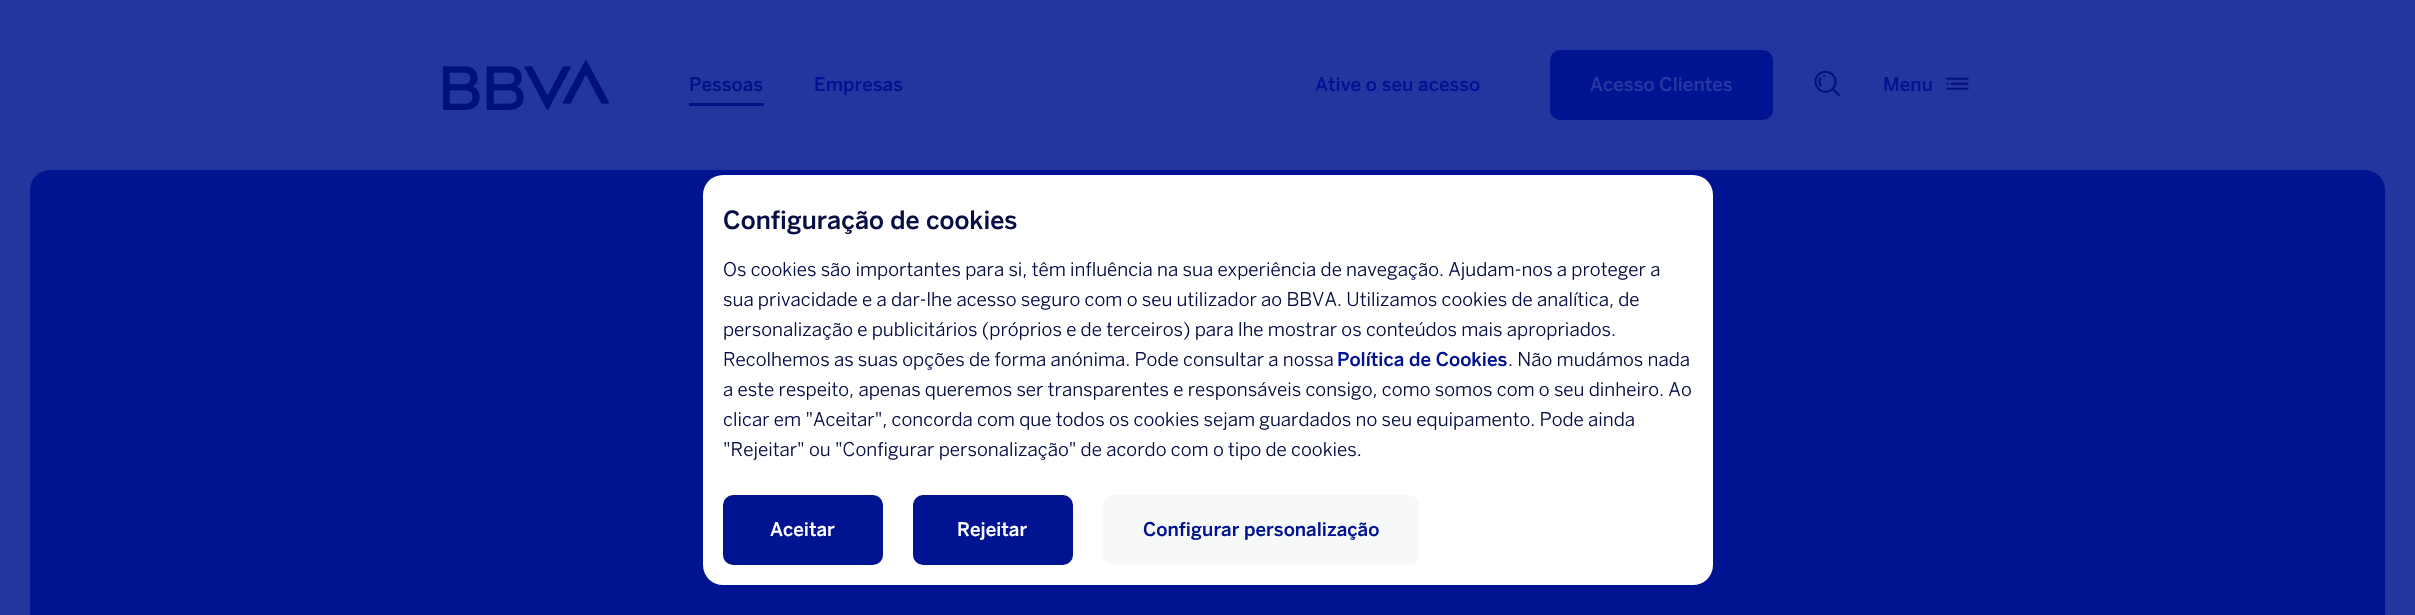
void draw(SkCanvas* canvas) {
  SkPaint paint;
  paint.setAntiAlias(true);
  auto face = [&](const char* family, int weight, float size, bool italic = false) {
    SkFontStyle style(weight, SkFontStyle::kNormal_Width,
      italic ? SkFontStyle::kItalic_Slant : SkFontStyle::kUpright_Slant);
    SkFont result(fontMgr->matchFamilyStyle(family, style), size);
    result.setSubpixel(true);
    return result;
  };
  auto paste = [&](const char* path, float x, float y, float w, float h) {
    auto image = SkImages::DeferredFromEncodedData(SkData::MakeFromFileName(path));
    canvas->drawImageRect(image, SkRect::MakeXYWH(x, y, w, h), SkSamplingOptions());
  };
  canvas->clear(0xff2535a0);
  paste("img/1.png", 443, 60, 166, 50);
  paint.setColor(0xff011286);
  canvas->drawRect(SkRect::MakeXYWH(689, 103, 75, 3), paint);
  {
    const SkColor colors[] = {0xff011286, 0xff001391};
    const float stops[] = {0.5f, 0.5f};
    const SkPoint ends[] = {{1309, 44}, {1774, 126}};
    paint.setShader(SkGradientShader::MakeLinear(ends, colors, stops, 2, SkTileMode::kClamp));
    paint.setAlpha(255);
  }
  canvas->drawRoundRect(SkRect::MakeXYWH(1550, 50, 223, 70), 10, 10, paint);
  paste("img/2.png", 1814, 70, 27, 27);
  paste("img/3.png", 1946, 77, 23, 13);
  paint.setShader(nullptr);
  paint.setColor(0xff001391);
  canvas->drawRoundRect(SkRect::MakeXYWH(30, 170, 2355, 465), 20, 20, paint);
  paint.setColor(0xffffffff);
  canvas->drawRoundRect(SkRect::MakeXYWH(703, 175, 1010, 410), 20, 20, paint);
  {
    const SkColor colors[] = {0xff070e46, 0xff001391};
    const float stops[] = {0.5f, 0.5f};
    const SkPoint ends[] = {{547, 500}, {885, 560}};
    paint.setShader(SkGradientShader::MakeLinear(ends, colors, stops, 2, SkTileMode::kClamp));
    paint.setAlpha(255);
  }
  canvas->drawRoundRect(SkRect::MakeXYWH(723, 495, 160, 70), 10, 10, paint);
  {
    const SkColor colors[] = {0xff070e46, 0xff001391};
    const float stops[] = {0.5f, 0.5f};
    const SkPoint ends[] = {{737, 500}, {1075, 560}};
    paint.setShader(SkGradientShader::MakeLinear(ends, colors, stops, 2, SkTileMode::kClamp));
    paint.setAlpha(255);
  }
  canvas->drawRoundRect(SkRect::MakeXYWH(913, 495, 160, 70), 10, 10, paint);
  {
    const SkColor colors[] = {0xffffffff, 0xfff7f8f8};
    const float stops[] = {0.5f, 0.5f};
    const SkPoint ends[] = {{762, 472}, {1418, 588}};
    paint.setShader(SkGradientShader::MakeLinear(ends, colors, stops, 2, SkTileMode::kClamp));
    paint.setAlpha(255);
  }
  canvas->drawRoundRect(SkRect::MakeXYWH(1103, 495, 316, 70), 10, 10, paint);
  auto f0 = face("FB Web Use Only", 500, 18.75f);
  paint.setShader(nullptr);
  paint.setColor(0xff011286);
  canvas->drawString("Pessoas", 689, 91, f0, paint);
  paint.setColor(0xff001391);
  canvas->drawString("Empresas", 814, 91, f0, paint);
  canvas->drawString("Ative o seu acesso", 1315, 91, f0, paint);
  paint.setColor(0xff2636a2);
  canvas->drawString("Acesso Clientes", 1590, 91, f0, paint);
  paint.setColor(0xff001391);
  canvas->drawString("Menu", 1883, 91, f0, paint);
  auto f1 = face("FB Web Use Only", 500, 25);
  paint.setColor(0xff070e46);
  canvas->drawString("Configuração de cookies", 723, 229, f1, paint);
  auto f2 = face("FB Web Use Only", 300, 18.75f);
  {
    const struct { const char* s; float x, y; } items[] = {
      {"Os cookies são importantes para si, têm influência na sua experiência de navegação. Ajudam-nos a proteger a", 723, 276},
      {"sua privacidade e a dar-lhe acesso seguro com o seu utilizador ao BBVA. Utilizamos cookies de analítica, de", 723, 306},
      {"personalização e publicitários (próprios e de terceiros) para lhe mostrar os conteúdos mais apropriados.", 723, 336},
      {"Recolhemos as suas opções de forma anónima. Pode consultar a nossa", 723, 366},
    };
    for (auto [s, x, y] : items) {
      canvas->drawString(s, x, y, f2, paint);
    }
  }
  paint.setColor(0xff001391);
  canvas->drawString("Política de Cookies", 1337, 366, f0, paint);
  paint.setColor(0xff070e46);
  {
    const struct { const char* s; float x, y; } items[] = {
      {". Não mudámos nada", 1508, 366},
      {"a este respeito, apenas queremos ser transparentes e responsáveis consigo, como somos com o seu dinheiro. Ao", 723, 396},
      {"clicar em \"Aceitar\", concorda com que todos os cookies sejam guardados no seu equipamento. Pode ainda", 723, 426},
      {"\"Rejeitar\" ou \"Configurar personalização\" de acordo com o tipo de cookies.", 723, 456},
    };
    for (auto [s, x, y] : items) {
      canvas->drawString(s, x, y, f2, paint);
    }
  }
  paint.setColor(0xffffffff);
  canvas->drawString("Aceitar", 770, 536, f0, paint);
  canvas->drawString("Rejeitar", 957, 536, f0, paint);
  paint.setColor(0xff001391);
  canvas->drawString("Configurar personalização", 1143, 536, f0, paint);
}
